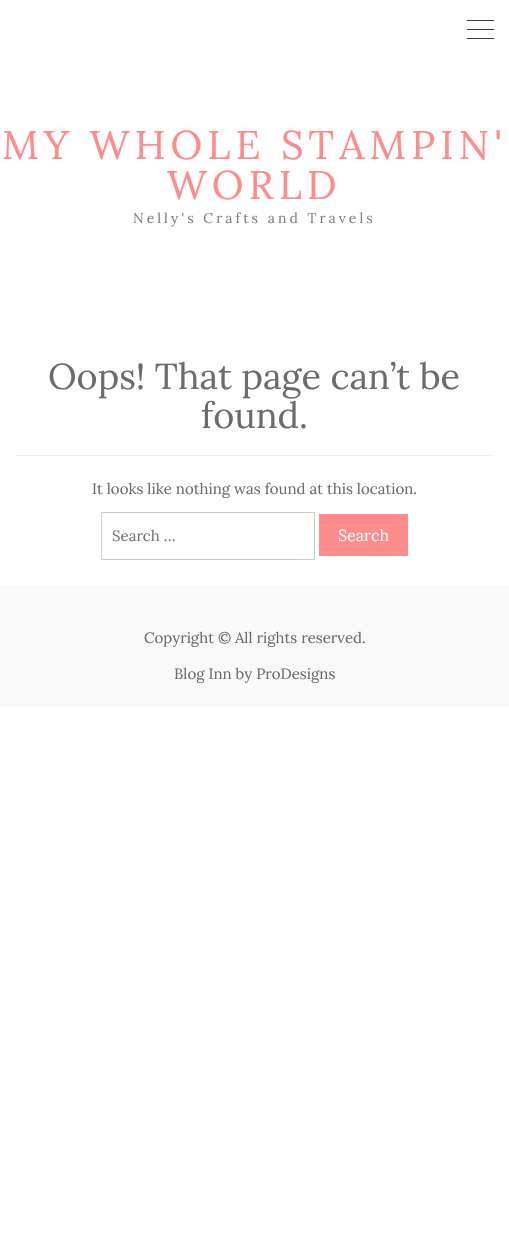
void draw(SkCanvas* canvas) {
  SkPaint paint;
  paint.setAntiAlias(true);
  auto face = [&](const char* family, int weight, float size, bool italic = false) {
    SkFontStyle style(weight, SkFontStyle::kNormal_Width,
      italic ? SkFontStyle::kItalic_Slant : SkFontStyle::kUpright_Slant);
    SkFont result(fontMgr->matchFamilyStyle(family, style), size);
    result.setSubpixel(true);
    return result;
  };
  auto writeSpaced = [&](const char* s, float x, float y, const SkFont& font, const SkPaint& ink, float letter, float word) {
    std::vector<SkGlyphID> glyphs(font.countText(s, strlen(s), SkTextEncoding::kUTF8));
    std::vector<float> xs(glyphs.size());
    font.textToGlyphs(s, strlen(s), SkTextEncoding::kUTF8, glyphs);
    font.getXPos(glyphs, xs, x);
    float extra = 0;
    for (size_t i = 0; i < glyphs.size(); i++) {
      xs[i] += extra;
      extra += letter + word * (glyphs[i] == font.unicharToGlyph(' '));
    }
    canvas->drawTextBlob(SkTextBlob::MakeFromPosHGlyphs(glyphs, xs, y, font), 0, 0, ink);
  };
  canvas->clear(0xffffffff);
  {
    const struct { float x, y, w, h; SkColor color; } items[] = {
      {467, 20, 27, 1, 0xff3a3b3d},
      {467, 29, 27, 1, 0xff3a3b3d},
      {467, 38, 27, 1, 0xff3a3b3d},
      {15, 455, 479, 1, 0xffeeeeee},
    };
    for (auto [x, y, w, h, color] : items) {
      paint.setColor(color);
      canvas->drawRect(SkRect::MakeXYWH(x, y, w, h), paint);
    }
  }
  paint.setStroke(true);
  paint.setStrokeWidth(1);
  paint.setColor(0xffcccccc);
  canvas->drawRect(SkRect::MakeXYWH(101.5f, 512.5f, 213, 47), paint);
  paint.setStroke(false);
  paint.setColor(0xffff8c8c);
  canvas->drawRect(SkRect::MakeXYWH(319, 514, 89, 42), paint);
  paint.setColor(0xfff9f9f9);
  canvas->drawRect(SkRect::MakeXYWH(0, 585, 509, 122), paint);
  auto f0 = face("Lora", 400, 40);
  paint.setColor(0xffff8c8c);
  writeSpaced("MY WHOLE STAMPIN'", 2, 159, f0, paint, 5, 0);
  writeSpaced("WORLD", 167, 199, f0, paint, 5, 0);
  auto f1 = face("Lora", 400, 14);
  paint.setColor(0xff818181);
  writeSpaced("Nelly's Crafts and Travels", 133, 223, f1, paint, 3, 0);
  auto f2 = face("Lora", 400, 36);
  paint.setColor(0xff6a6c6f);
  canvas->drawString("Oops! That page can’t be", 48, 389, f2, paint);
  canvas->drawString("found.", 201, 428, f2, paint);
  auto f3 = face("Lora", 400, 15);
  canvas->drawString("It looks like nothing was found at this location.", 92, 494, f3, paint);
  paint.setColor(0xff757575);
  canvas->drawString("Search …", 112, 541, f3, paint);
  auto f4 = face("Lora", 400, 16);
  paint.setColor(0xffffffff);
  canvas->drawString("Search", 338, 541, f4, paint);
  paint.setColor(0xff6a6c6f);
  canvas->drawString("Copyright © All rights reserved.", 144, 643, f3, paint);
  canvas->drawString("Blog Inn by ProDesigns", 174, 679, f3, paint);
}
